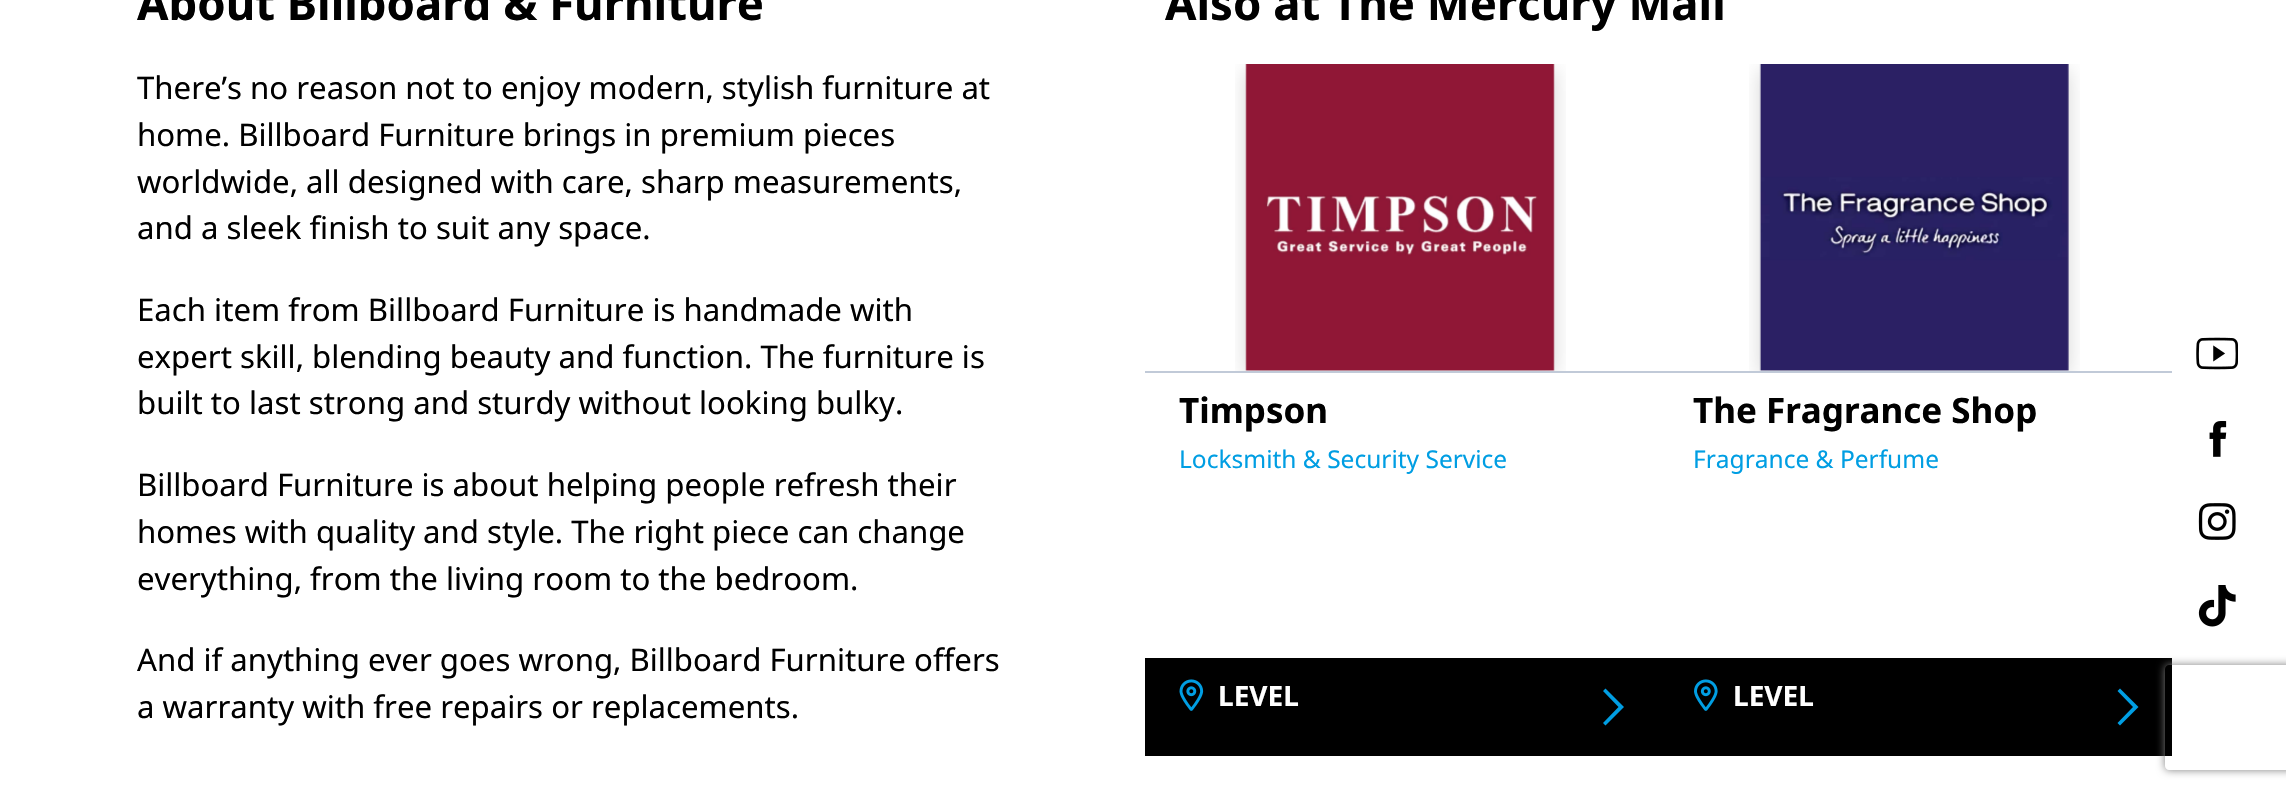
void draw(SkCanvas* canvas) {
  SkPaint paint;
  paint.setAntiAlias(true);
  auto face = [&](const char* family, int weight, float size, bool italic = false) {
    SkFontStyle style(weight, SkFontStyle::kNormal_Width,
      italic ? SkFontStyle::kItalic_Slant : SkFontStyle::kUpright_Slant);
    SkFont result(fontMgr->matchFamilyStyle(family, style), size);
    result.setSubpixel(true);
    return result;
  };
  auto paste = [&](const char* path, float x, float y, float w, float h) {
    auto image = SkImages::DeferredFromEncodedData(SkData::MakeFromFileName(path));
    canvas->drawImageRect(image, SkRect::MakeXYWH(x, y, w, h), SkSamplingOptions());
  };
  auto shape = [&](const char* data, bool evenOdd = false) {
    SkPath result = *SkParsePath::FromSVGString(data);
    if (evenOdd) result.setFillType(SkPathFillType::kEvenOdd);
    return result;
  };
  canvas->clear(0xffffffff);
  paste("img/1.png", 1235, 64, 331, 307);
  paint.setColor(0xffc1cad8);
  canvas->drawRect(SkRect::MakeXYWH(1145, 371, 1027, 2), paint);
  paint.setColor(0xff000000);
  canvas->drawRect(SkRect::MakeXYWH(1145, 658, 1027, 98), paint);
  paste("img/2.png", 1179, 679, 25, 32);
  paint.setColor(0xff009ee3);
  canvas->drawPath(shape("M1624 707L1605.5 725.5L1603 723L1618.5 707L1603 691L1605.5 688.5Z"), paint);
  paste("img/3.png", 1749, 64, 331, 307);
  paste("img/4.png", 1694, 679, 24, 32);
  canvas->drawPath(shape("M2138.5 707L2120 725.5L2117.5 723L2133 707L2117.5 691L2120 688.5Z"), paint);
  paste("img/5.png", 2196, 337, 42, 33);
  paste("img/6.png", 2209, 421, 18, 36);
  paste("img/7.png", 2198, 503, 38, 37);
  paste("img/8.png", 2198, 585, 38, 42);
  canvas->save();
  canvas->clipPath(shape("M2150 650H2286V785H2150ZM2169 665H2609C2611 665 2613 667 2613 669V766C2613 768 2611 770 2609 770H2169C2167 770 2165 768 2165 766V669C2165 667 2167 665 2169 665Z", true), true);
  paint.setColor(0xff808080);
  paint.setMaskFilter(SkMaskFilter::MakeBlur(kNormal_SkBlurStyle, 4.5f));
  canvas->drawRoundRect(SkRect::MakeXYWH(2165, 665, 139, 105), 4, 4, paint);
  paint.setMaskFilter(nullptr);
  canvas->restore();
  auto f0 = face("Noto Sans", 700, 45.5f);
  paint.setColor(0xff000000);
  canvas->drawString("About Billboard & Furniture", 137, 20, f0, paint);
  auto f1 = face("Noto Sans", 400, 31.15f);
  {
    const struct { const char* s; float x, y; } items[] = {
      {"There’s no reason not to enjoy modern, stylish furniture at", 137, 99},
      {"home. Billboard Furniture brings in premium pieces", 137, 146},
      {"worldwide, all designed with care, sharp measurements,", 137, 193},
      {"and a sleek finish to suit any space.", 137, 239},
      {"Each item from Billboard Furniture is handmade with", 137, 321},
      {"expert skill, blending beauty and function. The furniture is", 137, 368},
      {"built to last strong and sturdy without looking bulky.", 137, 414},
      {"Billboard Furniture is about helping people refresh their", 137, 496},
      {"homes with quality and style. The right piece can change", 137, 543},
      {"everything, from the living room to the bedroom.", 137, 590},
      {"And if anything ever goes wrong, Billboard Furniture offers", 137, 671},
      {"a warranty with free repairs or replacements.", 137, 718},
    };
    for (auto [s, x, y] : items) {
      canvas->drawString(s, x, y, f1, paint);
    }
  }
  canvas->drawString("Also at The Mercury Mall", 1165, 20, f0, paint);
  auto f2 = face("Noto Sans", 700, 35);
  canvas->drawString("Timpson", 1179, 423, f2, paint);
  auto f3 = face("Noto Sans", 400, 24.5f);
  paint.setColor(0xff009ee3);
  canvas->drawString("Locksmith & Security Service", 1179, 468, f3, paint);
  auto f4 = face("Noto Sans", 700, 28);
  paint.setColor(0xffffffff);
  canvas->drawString("LEVEL", 1218, 706, f4, paint);
  paint.setColor(0xff000000);
  canvas->drawString("The Fragrance Shop", 1693, 423, f2, paint);
  paint.setColor(0xff009ee3);
  canvas->drawString("Fragrance & Perfume", 1693, 468, f3, paint);
  paint.setColor(0xffffffff);
  canvas->drawString("LEVEL", 1733, 706, f4, paint);
}
